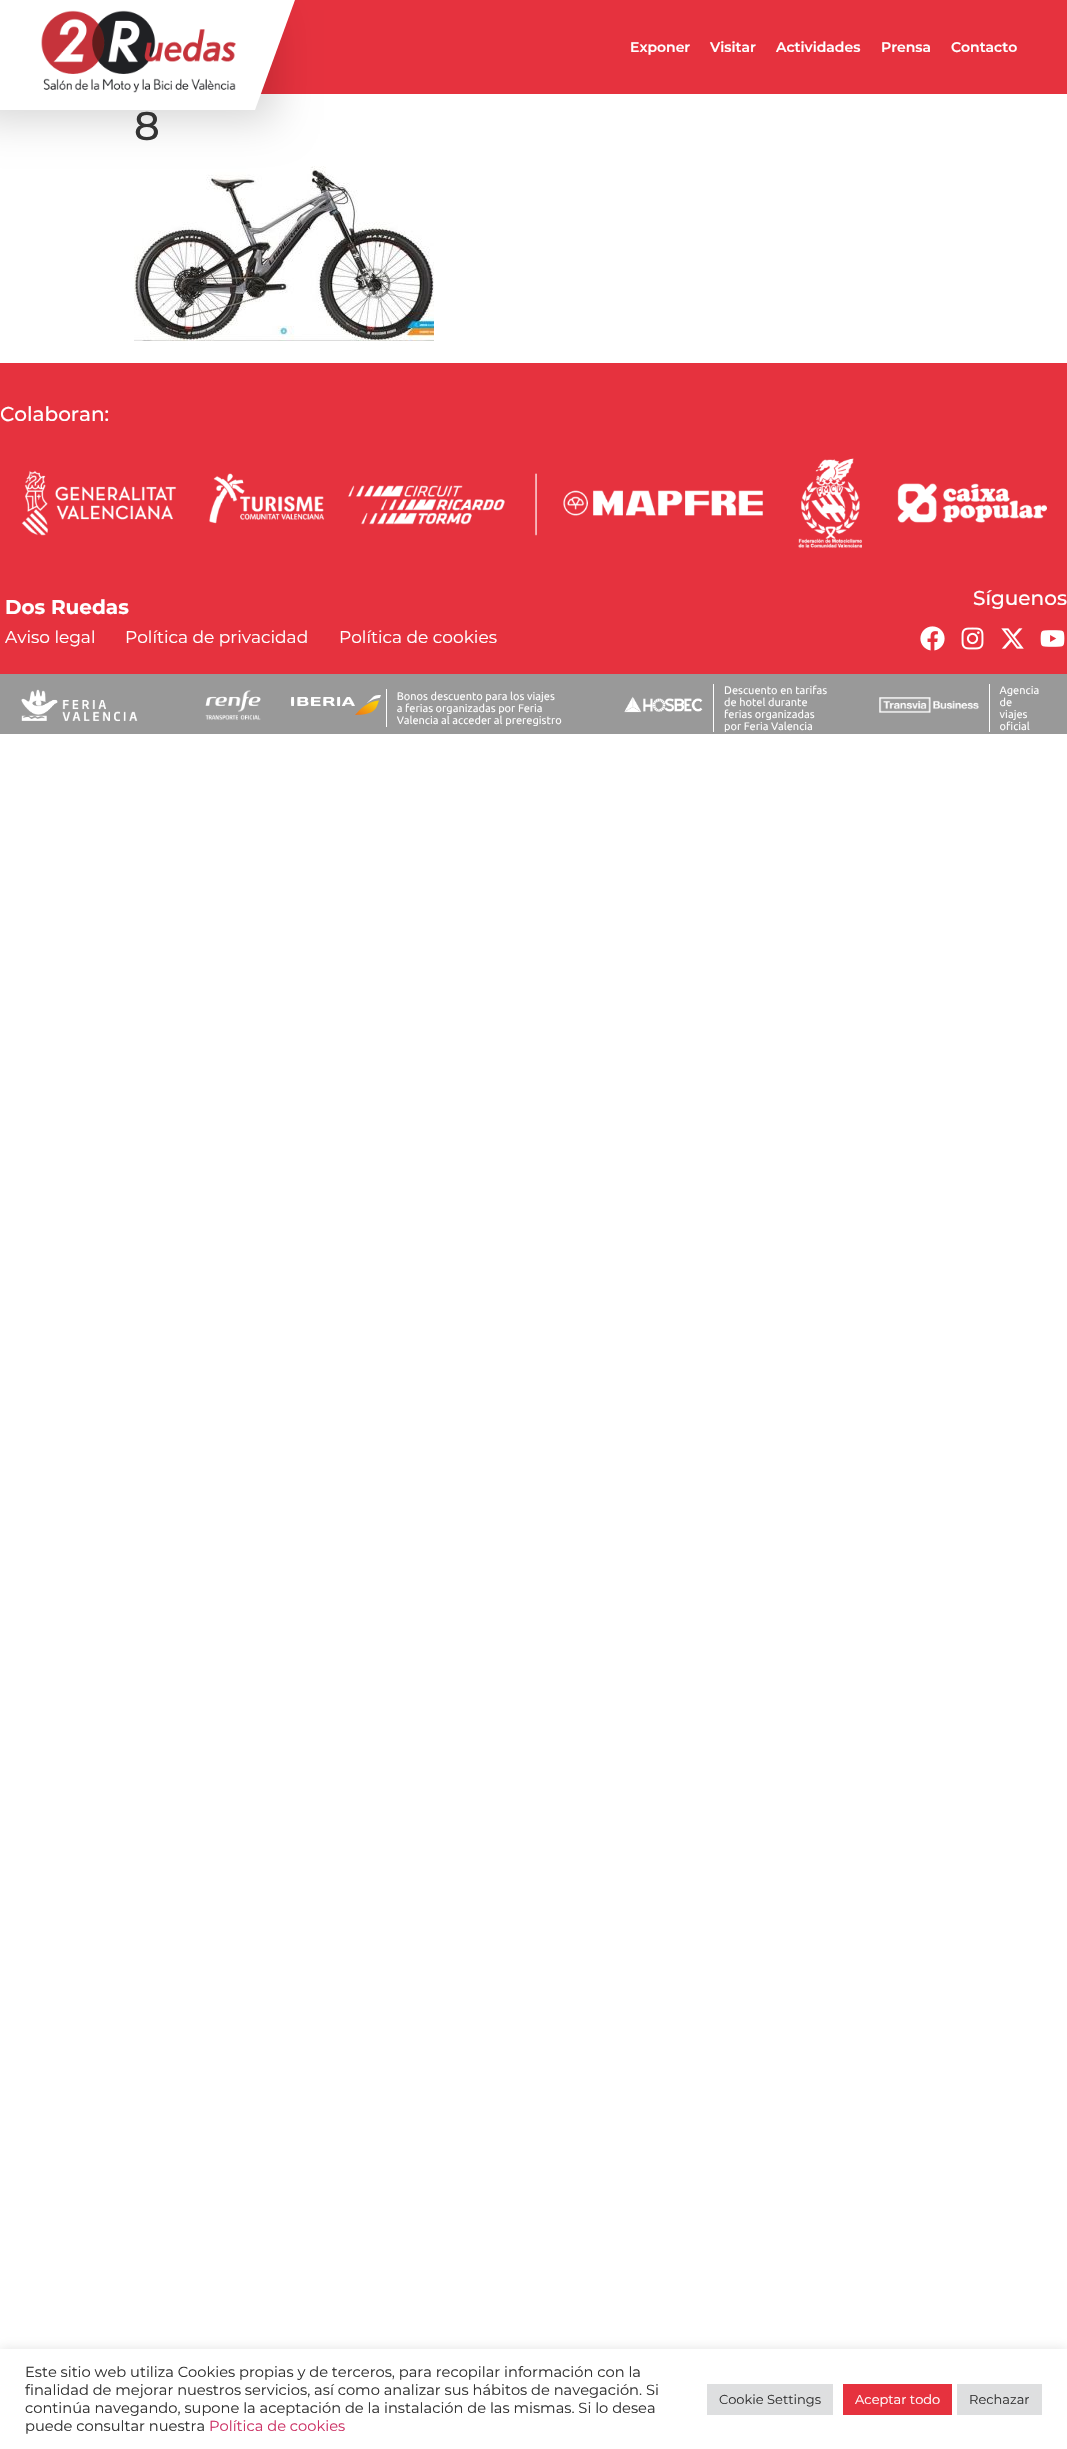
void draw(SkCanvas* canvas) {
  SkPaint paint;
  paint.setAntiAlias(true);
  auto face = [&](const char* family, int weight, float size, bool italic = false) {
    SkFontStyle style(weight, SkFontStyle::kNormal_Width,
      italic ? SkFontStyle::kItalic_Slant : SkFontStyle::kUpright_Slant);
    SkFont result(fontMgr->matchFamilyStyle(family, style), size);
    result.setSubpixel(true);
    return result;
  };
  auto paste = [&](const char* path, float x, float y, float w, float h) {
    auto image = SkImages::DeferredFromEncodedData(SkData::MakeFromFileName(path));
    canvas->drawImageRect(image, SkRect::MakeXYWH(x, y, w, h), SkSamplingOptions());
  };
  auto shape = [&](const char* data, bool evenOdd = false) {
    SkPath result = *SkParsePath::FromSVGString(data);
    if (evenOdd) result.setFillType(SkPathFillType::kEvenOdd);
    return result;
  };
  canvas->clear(0xffffffff);
  paint.setColor(0xffe6323e);
  canvas->drawRect(SkRect::MakeXYWH(260, 0, 807, 94), paint);
  paste("img/2.png", 134, 166, 300, 175);
  paint.setColor(0x29000000);
  paint.setMaskFilter(SkMaskFilter::MakeBlur(kNormal_SkBlurStyle, 20));
  canvas->drawRect(SkRect::MakeXYWH(-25, 10, 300, 110), paint);
  paint.setMaskFilter(nullptr);
  paint.setColor(0xffffffff);
  canvas->drawPath(shape("M-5 0H295L255 110H-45Z"), paint);
  paste("img/1.png", 41, 10, 195, 83);
  paint.setColor(0xffe6323e);
  canvas->drawRect(SkRect::MakeXYWH(0, 363, 1067, 311), paint);
  paste("img/3.png", 21, 458, 1026, 90);
  paste("img/4.png", 920, 626, 25, 25);
  paste("img/5.png", 961, 627, 23, 23);
  paste("img/6.png", 1001, 628, 23, 21);
  paste("img/7.png", 1040, 630, 25, 17);
  paste("img/8.png", 0, 674, 1067, 60);
  paint.setColor(0x4dacabab);
  paint.setMaskFilter(SkMaskFilter::MakeBlur(kNormal_SkBlurStyle, 5));
  canvas->drawRect(SkRect::MakeXYWH(0, 2348, 1067, 100), paint);
  paint.setMaskFilter(nullptr);
  {
    const struct { float x, y, w, h; SkColor color; } items[] = {
      {0, 2349, 1067, 100, 0xffffffff},
      {707, 2384, 126, 31, 0xffdedfe0},
      {843, 2384, 109, 31, 0xffe6323e},
      {957, 2384, 85, 31, 0xffdedfe0},
    };
    for (auto [x, y, w, h, color] : items) {
      paint.setColor(color);
      canvas->drawRect(SkRect::MakeXYWH(x, y, w, h), paint);
    }
  }
  auto f0 = face("Montserrat", 600, 14);
  paint.setColor(0xffffffff);
  {
    const struct { const char* s; float x, y; } items[] = {
      {"Exponer", 630, 52},
      {"Visitar", 710, 52},
      {"Actividades", 776, 52},
      {"Prensa", 881, 52},
      {"Contacto", 951, 52},
    };
    for (auto [s, x, y] : items) {
      canvas->drawString(s, x, y, f0, paint);
    }
  }
  auto f1 = face("Montserrat", 500, 40);
  paint.setColor(0xff333333);
  canvas->drawString("8", 134, 140, f1, paint);
  auto f2 = face("Montserrat", 500, 20);
  paint.setColor(0xffffffff);
  canvas->drawString("Colaboran:", 0, 421, f2, paint);
  auto f3 = face("Montserrat", 700, 20);
  canvas->drawString("Dos Ruedas", 5, 614, f3, paint);
  auto f4 = face("Montserrat", 400, 17);
  {
    const struct { const char* s; float x, y; } items[] = {
      {"Aviso legal", 5, 643},
      {"Política de privacidad", 125, 643},
      {"Política de cookies", 339, 643},
    };
    for (auto [s, x, y] : items) {
      canvas->drawString(s, x, y, f4, paint);
    }
  }
  canvas->drawString("Síguenos", 973, 605, f2, paint);
  auto f5 = face("Montserrat", 400, 14.65f);
  paint.setColor(0xff333333);
  {
    const struct { const char* s; float x, y; } items[] = {
      {"Este sitio web utiliza Cookies propias y de terceros, para recopilar información con la", 25, 2377},
      {"finalidad de mejorar nuestros servicios, así como analizar sus hábitos de navegación. Si", 25, 2395},
      {"continúa navegando, supone la aceptación de la instalación de las mismas. Si lo desea", 25, 2413},
      {"puede consultar nuestra", 25, 2431},
    };
    for (auto [s, x, y] : items) {
      canvas->drawString(s, x, y, f5, paint);
    }
  }
  paint.setColor(0xffcc3366);
  canvas->drawString("Política de cookies", 209, 2431, f5, paint);
  auto f6 = face("Montserrat", 400, 13);
  paint.setColor(0xff333333);
  canvas->drawString("Cookie Settings", 719, 2404, f6, paint);
  paint.setColor(0xffffffff);
  canvas->drawString("Aceptar todo", 855, 2404, f6, paint);
  paint.setColor(0xff333333);
  canvas->drawString("Rechazar", 969, 2404, f6, paint);
}
